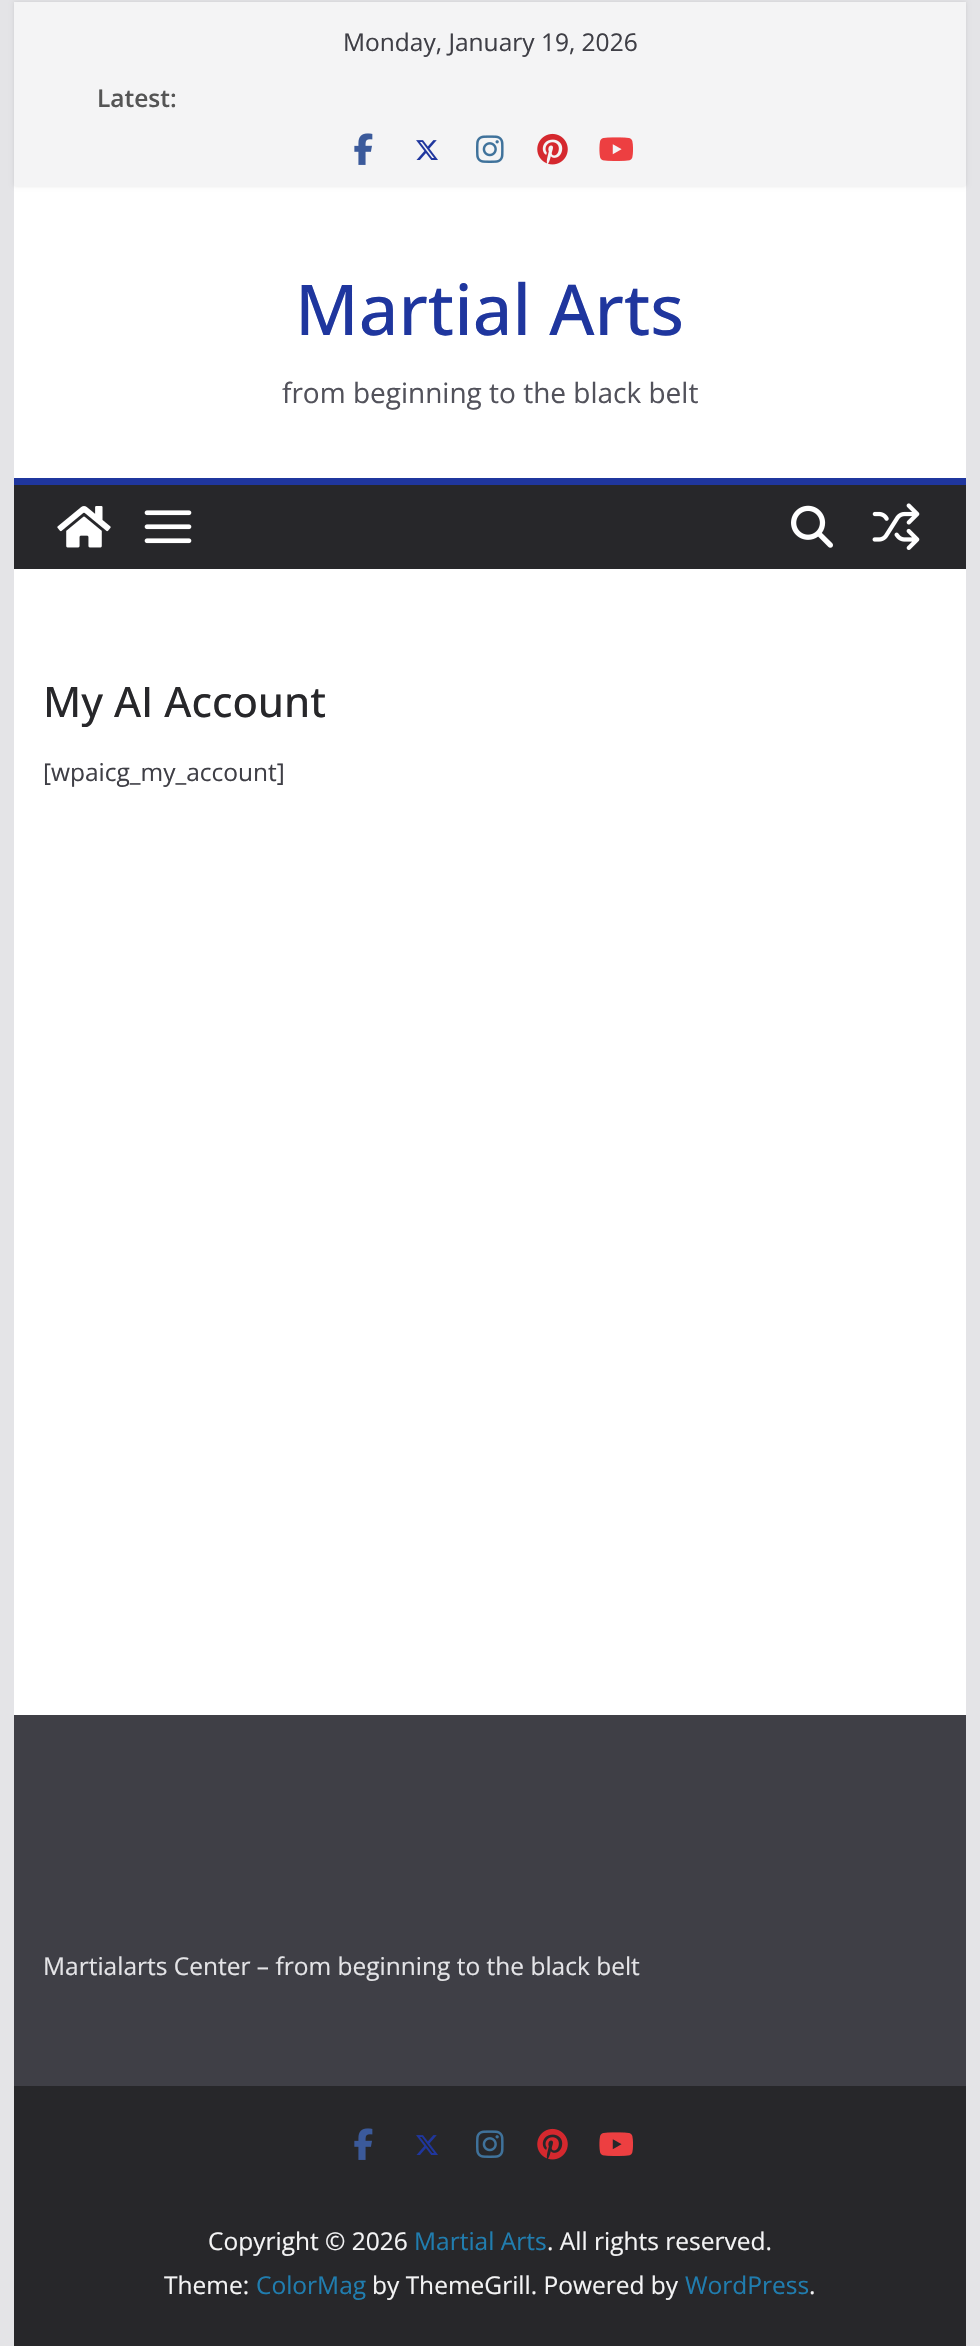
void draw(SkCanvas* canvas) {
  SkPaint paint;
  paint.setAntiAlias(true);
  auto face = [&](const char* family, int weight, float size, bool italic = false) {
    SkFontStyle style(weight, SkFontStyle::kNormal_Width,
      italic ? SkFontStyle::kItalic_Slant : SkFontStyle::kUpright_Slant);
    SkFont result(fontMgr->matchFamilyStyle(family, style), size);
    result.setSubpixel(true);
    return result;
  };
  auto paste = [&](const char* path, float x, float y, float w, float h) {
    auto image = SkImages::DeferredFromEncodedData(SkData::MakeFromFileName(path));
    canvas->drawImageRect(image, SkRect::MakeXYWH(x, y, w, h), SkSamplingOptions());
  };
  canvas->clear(0xffe4e4e7);
  paint.setColor(0xffffffff);
  canvas->drawRect(SkRect::MakeXYWH(14, 186, 952, 292), paint);
  paint.setColor(0x1a000000);
  paint.setMaskFilter(SkMaskFilter::MakeBlur(kNormal_SkBlurStyle, 2));
  canvas->drawRect(SkRect::MakeXYWH(14, 2, 952, 184), paint);
  paint.setMaskFilter(nullptr);
  paint.setColor(0xfff4f4f5);
  canvas->drawRect(SkRect::MakeXYWH(14, 2, 952, 184), paint);
  paste("img/1.png", 354, 133, 19, 32);
  paste("img/2.png", 416, 140, 22, 20);
  paste("img/3.png", 476, 135, 28, 28);
  paste("img/4.png", 537, 133, 31, 32);
  paste("img/5.png", 599, 137, 34, 24);
  paint.setColor(0xff27272a);
  canvas->drawRect(SkRect::MakeXYWH(14, 485, 952, 84), paint);
  paint.setColor(0xff1f369e);
  canvas->drawRect(SkRect::MakeXYWH(14, 478, 952, 7), paint);
  paste("img/6.png", 57, 506, 54, 42);
  paste("img/7.png", 144, 510, 48, 34);
  paste("img/8.png", 791, 505, 42, 43);
  paste("img/9.png", 872, 503, 48, 47);
  {
    const struct { float x, y, w, h; SkColor color; } items[] = {
      {14, 569, 952, 1146, 0xffffffff},
      {14, 1715, 952, 371, 0xff3f3f46},
      {14, 2086, 952, 260, 0xff27272a},
    };
    for (auto [x, y, w, h, color] : items) {
      paint.setColor(color);
      canvas->drawRect(SkRect::MakeXYWH(x, y, w, h), paint);
    }
  }
  paste("img/10.png", 354, 2128, 19, 32);
  paste("img/11.png", 416, 2135, 22, 20);
  paste("img/12.png", 476, 2130, 28, 28);
  paste("img/13.png", 537, 2128, 31, 32);
  paste("img/14.png", 599, 2132, 34, 24);
  auto f0 = face("Open Sans", 400, 24.5f);
  paint.setColor(0xff3f3f46);
  canvas->drawString("Monday, January 19, 2026", 343, 51, f0, paint);
  auto f1 = face("Open Sans", 600, 24.5f);
  paint.setColor(0xff555555);
  canvas->drawString("Latest:", 97, 107, f1, paint);
  auto f2 = face("Open Sans", 500, 70);
  paint.setColor(0xff1f369e);
  canvas->drawString("Martial Arts", 295, 335, f2, paint);
  auto f3 = face("Open Sans", 400, 28);
  paint.setColor(0xff52525b);
  canvas->drawString("from beginning to the black belt", 282, 403, f3, paint);
  auto f4 = face("Open Sans", 500, 42);
  paint.setColor(0xff27272a);
  canvas->drawString("My AI Account", 43, 717, f4, paint);
  paint.setColor(0xff3f3f46);
  canvas->drawString("[wpaicg_my_account]", 43, 781, f0, paint);
  paint.setColor(0xffe4e4e7);
  canvas->drawString("Martialarts Center – from beginning to the black belt", 43, 1975, f0, paint);
  paint.setColor(0xfff4f4f5);
  canvas->drawString("Copyright © 2026", 208, 2250, f0, paint);
  paint.setColor(0xff207daf);
  canvas->drawString("Martial Arts", 414, 2250, f0, paint);
  paint.setColor(0xfff4f4f5);
  canvas->drawString(". All rights reserved.", 547, 2250, f0, paint);
  canvas->drawString("Theme:", 164, 2294, f0, paint);
  paint.setColor(0xff207daf);
  canvas->drawString("ColorMag", 256, 2294, f0, paint);
  paint.setColor(0xfff4f4f5);
  canvas->drawString("by ThemeGrill. Powered by", 372, 2294, f0, paint);
  paint.setColor(0xff207daf);
  canvas->drawString("WordPress", 685, 2294, f0, paint);
  paint.setColor(0xfff4f4f5);
  canvas->drawString(".", 809, 2294, f0, paint);
}
